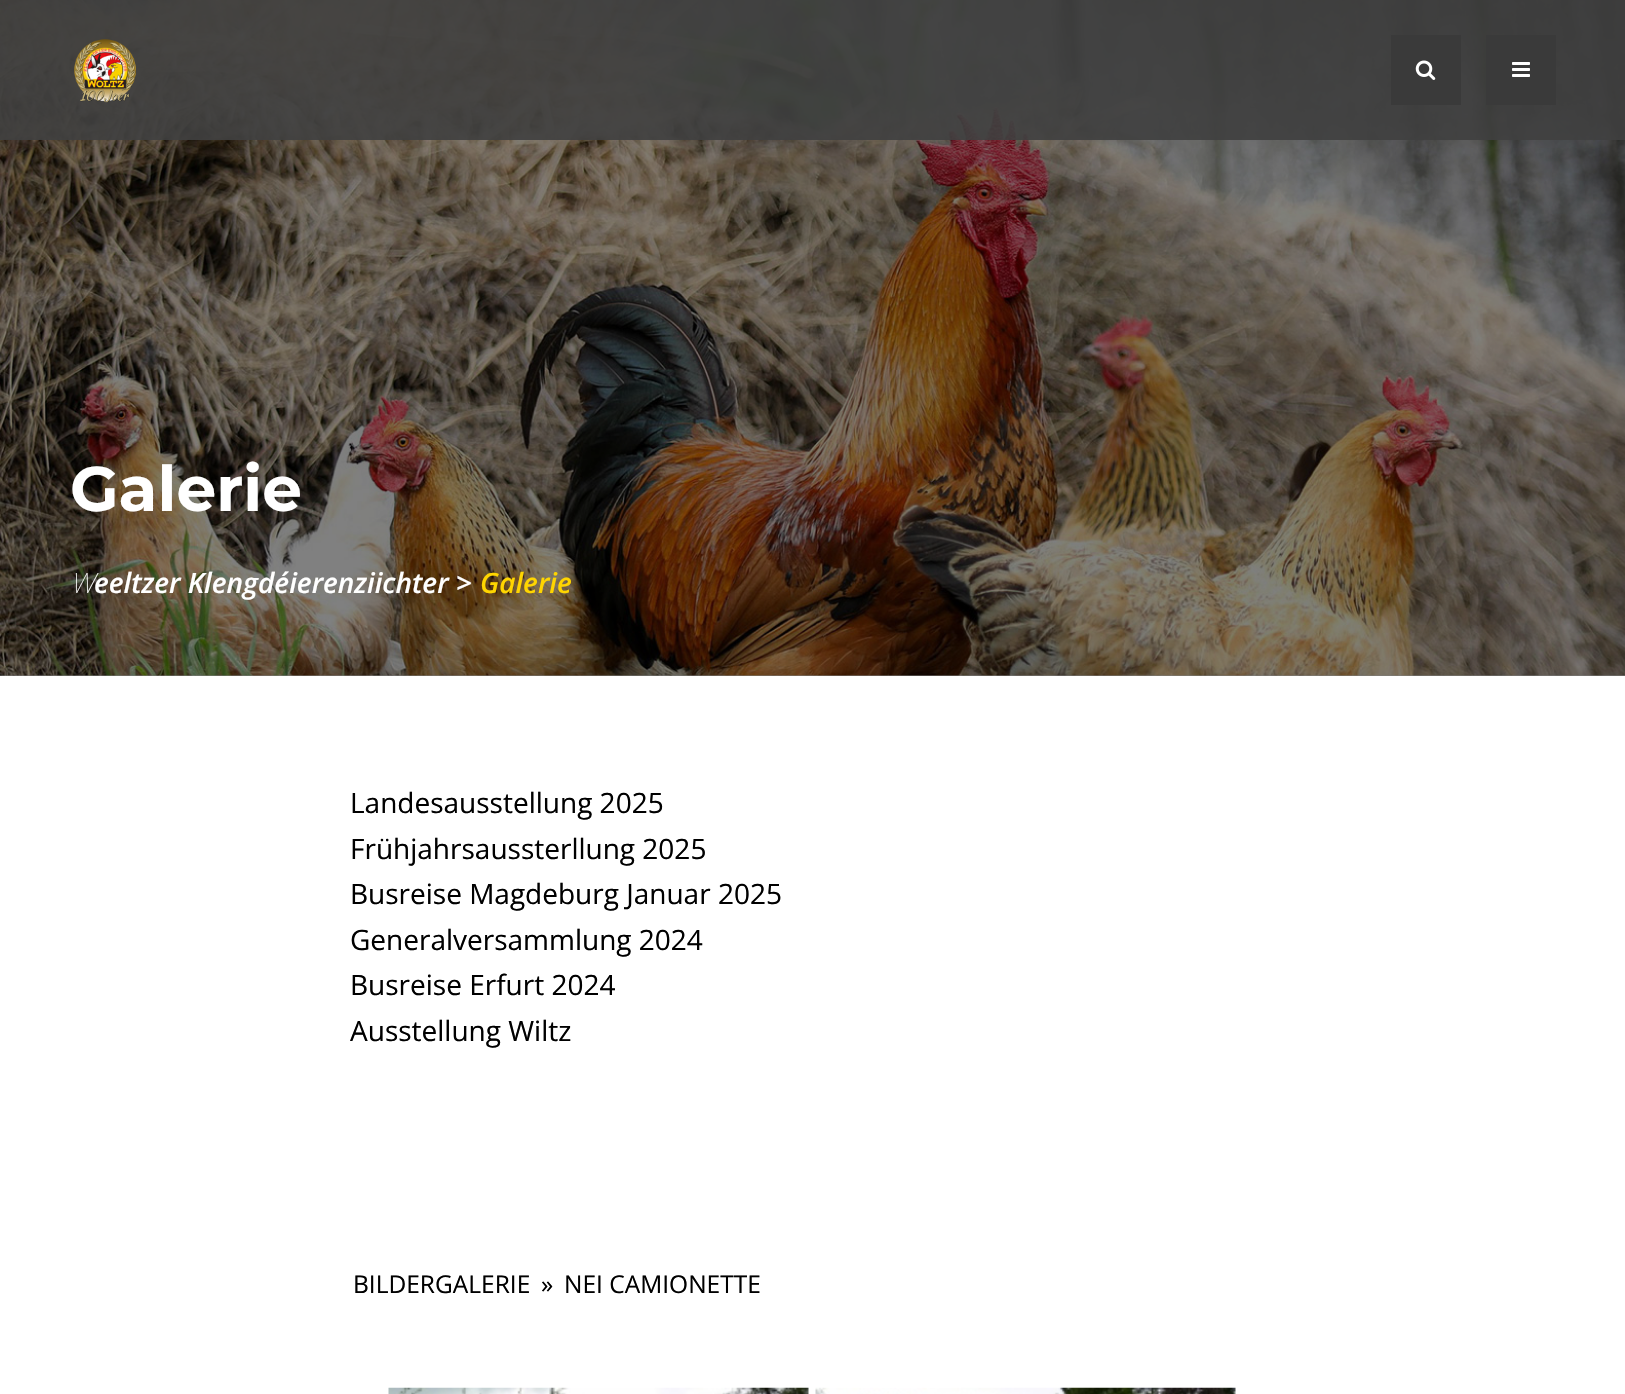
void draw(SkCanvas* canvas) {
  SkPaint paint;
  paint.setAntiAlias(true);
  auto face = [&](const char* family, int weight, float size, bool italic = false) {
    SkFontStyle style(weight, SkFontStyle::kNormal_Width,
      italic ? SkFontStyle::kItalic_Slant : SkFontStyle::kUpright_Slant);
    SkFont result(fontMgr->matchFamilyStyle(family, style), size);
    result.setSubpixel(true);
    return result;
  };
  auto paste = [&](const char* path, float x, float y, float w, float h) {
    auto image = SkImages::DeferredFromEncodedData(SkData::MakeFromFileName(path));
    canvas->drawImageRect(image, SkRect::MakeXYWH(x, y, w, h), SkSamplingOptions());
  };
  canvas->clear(0xffffffff);
  paint.setColor(0xff808080);
  canvas->drawRect(SkRect::MakeXYWH(0, 675, 1625, 1), paint);
  paste("img/4.png", 0, 0, 1625, 676);
  paint.setColor(0xe63f3f3f);
  canvas->drawRect(SkRect::MakeXYWH(0, 0, 1625, 140), paint);
  paste("img/1.png", 74, 39, 62, 64);
  paint.setColor(0xff3a3a3a);
  canvas->drawRect(SkRect::MakeXYWH(1391, 35, 70, 70), paint);
  paste("img/2.png", 1415, 60, 21, 20);
  canvas->drawRect(SkRect::MakeXYWH(1486, 35, 70, 70), paint);
  paste("img/3.png", 1512, 62, 18, 15);
  paste("img/5.png", 388, 1387, 421, 7);
  paste("img/6.png", 815, 1387, 421, 7);
  auto f0 = face("Montserrat", 700, 63);
  paint.setColor(0xffffffff);
  canvas->drawString("Galerie", 70, 511, f0, paint);
  auto f1 = face("Noto Sans", 100, 28, true);
  canvas->drawString("W", 70, 593, f1, paint);
  auto f2 = face("Open Sans", 600, 28, true);
  canvas->drawString("eeltzer Klengdéierenziichter >", 94, 593, f2, paint);
  paint.setColor(0xffffd500);
  canvas->drawString("Galerie", 480, 593, f2, paint);
  auto f3 = face("Open Sans", 400, 28);
  paint.setColor(0xff000000);
  {
    const struct { const char* s; float x, y; } items[] = {
      {"Landesausstellung 2025", 350, 813},
      {"Frühjahrsaussterllung 2025", 350, 859},
      {"Busreise Magdeburg Januar 2025", 350, 904},
      {"Generalversammlung 2024", 350, 950},
      {"Busreise Erfurt 2024", 350, 995},
      {"Ausstellung Wiltz", 350, 1041},
    };
    for (auto [s, x, y] : items) {
      canvas->drawString(s, x, y, f3, paint);
    }
  }
  auto f4 = face("Open Sans", 400, 24.5f);
  {
    const struct { const char* s; float x, y; } items[] = {
      {"BILDERGALERIE", 353, 1293},
      {"»", 541, 1293},
      {"NEI CAMIONETTE", 564, 1293},
    };
    for (auto [s, x, y] : items) {
      canvas->drawString(s, x, y, f4, paint);
    }
  }
}
